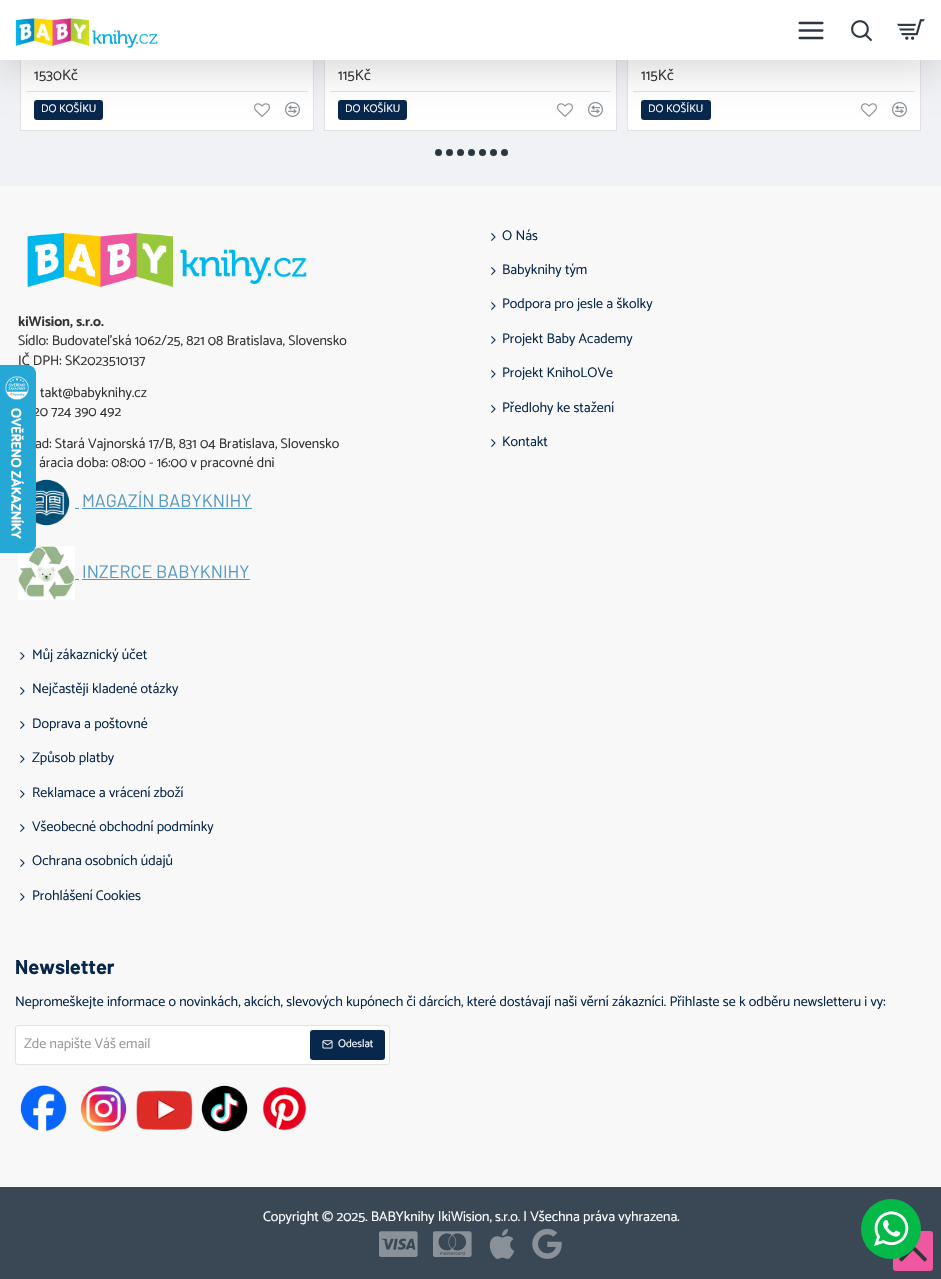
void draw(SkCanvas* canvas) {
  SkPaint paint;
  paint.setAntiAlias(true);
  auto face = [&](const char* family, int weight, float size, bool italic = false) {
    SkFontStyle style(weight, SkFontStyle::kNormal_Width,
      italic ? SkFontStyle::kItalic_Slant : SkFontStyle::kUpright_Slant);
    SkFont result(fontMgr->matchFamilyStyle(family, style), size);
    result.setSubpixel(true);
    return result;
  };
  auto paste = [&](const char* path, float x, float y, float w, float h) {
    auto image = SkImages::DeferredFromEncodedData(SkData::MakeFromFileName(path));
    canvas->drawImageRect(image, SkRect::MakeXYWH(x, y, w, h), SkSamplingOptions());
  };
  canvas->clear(0xfff0f2f5);
  paint.setColor(0xffffffff);
  canvas->drawRect(SkRect::MakeXYWH(21, 60, 292, 70), paint);
  paint.setStroke(true);
  paint.setStrokeWidth(1);
  paint.setColor(0xffe2e2e2);
  canvas->drawRect(SkRect::MakeXYWH(20.5f, -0.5f, 293, 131), paint);
  paint.setStroke(false);
  canvas->drawRect(SkRect::MakeXYWH(26, 91, 282, 1), paint);
  paint.setColor(0xff08274d);
  canvas->drawRoundRect(SkRect::MakeXYWH(34, 100, 69, 20), 3, 3, paint);
  paste("img/5.png", 254, 103, 16, 14);
  paste("img/6.png", 285, 102, 15, 15);
  paint.setColor(0xffffffff);
  canvas->drawRect(SkRect::MakeXYWH(325, 60, 291, 70), paint);
  paint.setStroke(true);
  paint.setColor(0xffe2e2e2);
  canvas->drawRect(SkRect::MakeXYWH(324.5f, -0.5f, 292, 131), paint);
  paint.setStroke(false);
  canvas->drawRect(SkRect::MakeXYWH(330, 91, 281, 1), paint);
  paint.setColor(0xff08274d);
  canvas->drawRoundRect(SkRect::MakeXYWH(338, 100, 69, 20), 3, 3, paint);
  paste("img/5.png", 557, 103, 16, 14);
  paste("img/6.png", 588, 102, 15, 15);
  paint.setColor(0xffffffff);
  canvas->drawRect(SkRect::MakeXYWH(628, 60, 292, 70), paint);
  paint.setStroke(true);
  paint.setColor(0xffe2e2e2);
  canvas->drawRect(SkRect::MakeXYWH(627.5f, -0.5f, 293, 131), paint);
  paint.setStroke(false);
  canvas->drawRect(SkRect::MakeXYWH(633, 91, 282, 1), paint);
  paint.setColor(0xff08274d);
  canvas->drawRoundRect(SkRect::MakeXYWH(641, 100, 70, 20), 3, 3, paint);
  paste("img/5.png", 861, 103, 16, 14);
  paste("img/6.png", 892, 102, 15, 15);
  paint.setColor(0x26000000);
  paint.setMaskFilter(SkMaskFilter::MakeBlur(kNormal_SkBlurStyle, 20));
  canvas->drawRect(SkRect::MakeXYWH(0, -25, 941, 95), paint);
  paint.setMaskFilter(nullptr);
  paint.setColor(0xffffffff);
  canvas->drawRect(SkRect::MakeXYWH(0, 0, 941, 60), paint);
  paste("img/1.png", 15, 18, 143, 30);
  paste("img/2.png", 798, 21, 26, 19);
  paste("img/3.png", 851, 20, 21, 21);
  paste("img/4.png", 897, 19, 28, 21);
  paint.setColor(0xff2c3640);
  canvas->drawCircle(438.5f, 152.5f, 3.5f, paint);
  canvas->drawCircle(449.5f, 152.5f, 3.5f, paint);
  canvas->drawCircle(460.5f, 152.5f, 3.5f, paint);
  canvas->drawCircle(471.5f, 152.5f, 3.5f, paint);
  canvas->drawCircle(482.5f, 152.5f, 3.5f, paint);
  canvas->drawCircle(493.5f, 152.5f, 3.5f, paint);
  canvas->drawCircle(504.5f, 152.5f, 3.5f, paint);
  paint.setColor(0xfff8f8f8);
  canvas->drawRect(SkRect::MakeXYWH(0, 186, 941, 1001), paint);
  paste("img/7.png", 27, 232, 280, 56);
  paste("img/8.png", 36, 479, 34, 47);
  paint.setColor(0xff579ac1);
  canvas->drawRect(SkRect::MakeXYWH(75, 508, 4, 1), paint);
  canvas->drawRect(SkRect::MakeXYWH(82, 508, 170, 1), paint);
  paste("img/9.png", 18, 546, 57, 54);
  canvas->drawRect(SkRect::MakeXYWH(75, 579, 4, 1), paint);
  canvas->drawRect(SkRect::MakeXYWH(82, 579, 168, 1), paint);
  paste("img/10.png", 491, 233, 5, 8);
  paste("img/10.png", 491, 267, 5, 8);
  paste("img/10.png", 491, 302, 5, 8);
  paste("img/10.png", 491, 336, 5, 8);
  paste("img/10.png", 491, 370, 5, 8);
  paste("img/10.png", 491, 405, 5, 8);
  paste("img/10.png", 491, 439, 5, 8);
  paste("img/10.png", 20, 652, 5, 8);
  paste("img/10.png", 20, 687, 5, 8);
  paste("img/10.png", 20, 721, 5, 8);
  paste("img/10.png", 20, 755, 5, 8);
  paste("img/10.png", 20, 790, 5, 8);
  paste("img/10.png", 20, 824, 5, 8);
  paste("img/10.png", 20, 859, 5, 8);
  paste("img/10.png", 20, 893, 5, 8);
  paint.setColor(0xffffffff);
  canvas->drawRoundRect(SkRect::MakeXYWH(15.5f, 1025.5f, 374, 39), 2.5f, 2.5f, paint);
  paint.setStroke(true);
  paint.setColor(0xffe2e2e2);
  canvas->drawRoundRect(SkRect::MakeXYWH(15.5f, 1025.5f, 374, 39), 2.5f, 2.5f, paint);
  paint.setStroke(false);
  paint.setColor(0xff08274d);
  canvas->drawRoundRect(SkRect::MakeXYWH(310, 1030, 75, 30), 3, 3, paint);
  paste("img/11.png", 322, 1040, 11, 9);
  paste("img/12.png", 20, 1085, 47, 46);
  paste("img/13.png", 80, 1086, 47, 46);
  paste("img/14.png", 136, 1090, 57, 40);
  paste("img/15.png", 201, 1085, 47, 47);
  paste("img/16.png", 262, 1086, 45, 45);
  paint.setColor(0xff3a4754);
  canvas->drawRect(SkRect::MakeXYWH(0, 1187, 941, 92), paint);
  paste("img/17.png", 379, 1231, 39, 26);
  paste("img/18.png", 433, 1231, 39, 26);
  paste("img/19.png", 489, 1229, 25, 30);
  paste("img/20.png", 532, 1228, 30, 31);
  paint.setColor(0xffef57a0);
  canvas->drawRoundRect(SkRect::MakeXYWH(893, 1231, 40, 40), 3, 3, paint);
  paste("img/23.png", 899, 1247, 28, 15);
  paint.setColor(0xff03b948);
  canvas->drawCircle(891, 1229, 30, paint);
  paste("img/22.png", 874, 1211, 35, 35);
  auto f0 = face("Catamaran", 100, 15);
  paint.setColor(0xff333333);
  canvas->drawString("1530Kč", 34, 80, f0, paint);
  auto f1 = face("Catamaran", 100, 11);
  paint.setColor(0xffffffff);
  canvas->drawString("DO KOŠÍKU", 41, 112, f1, paint);
  paint.setColor(0xff333333);
  canvas->drawString("115Kč", 338, 80, f0, paint);
  paint.setColor(0xffffffff);
  canvas->drawString("DO KOŠÍKU", 345, 112, f1, paint);
  paint.setColor(0xff333333);
  canvas->drawString("115Kč", 641, 80, f0, paint);
  paint.setColor(0xffffffff);
  canvas->drawString("DO KOŠÍKU", 648, 112, f1, paint);
  auto f2 = face("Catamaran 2", 100, 14);
  paint.setColor(0xff333333);
  canvas->drawString("kiWision, s.r.o.", 18, 326, f2, paint);
  auto f3 = face("Catamaran", 100, 14);
  {
    const struct { const char* s; float x, y; } items[] = {
      {"Sídlo: Budovateľská 1062/25, 821 08 Bratislava, Slovensko", 18, 345},
      {"IČ DPH: SK2023510137", 18, 365},
      {"takt@babyknihy.cz", 40, 397},
      {"20 724 390 492", 33, 416},
      {"ad: Stará Vajnorská 17/B, 831 04 Bratislava, Slovensko", 35, 448},
      {"áracia doba: 08:00 - 16:00 v pracovné dni", 39, 467},
    };
    for (auto [s, x, y] : items) {
      canvas->drawString(s, x, y, f3, paint);
    }
  }
  auto f4 = face("Barlow", 400, 18);
  paint.setColor(0xff579ac1);
  canvas->drawString("MAGAZÍN BABYKNIHY", 82, 507, f4, paint);
  canvas->drawString("INZERCE BABYKNIHY", 82, 578, f4, paint);
  paint.setColor(0xff08274d);
  {
    const struct { const char* s; float x, y; } items[] = {
      {"O Nás", 502, 240},
      {"Babyknihy tým", 502, 274},
      {"Podpora pro jesle a školky", 502, 308},
      {"Projekt Baby Academy", 502, 343},
      {"Projekt KnihoLOVe", 502, 377},
      {"Předlohy ke stažení", 502, 412},
      {"Kontakt", 502, 446},
      {"Můj zákaznický účet", 32, 659},
      {"Nejčastěji kladené otázky", 32, 693},
      {"Doprava a poštovné", 32, 728},
      {"Způsob platby", 32, 762},
      {"Reklamace a vrácení zboží", 32, 797},
      {"Všeobecné obchodní podmínky", 32, 831},
      {"Ochrana osobních údajů", 32, 865},
      {"Prohlášení Cookies", 32, 900},
    };
    for (auto [s, x, y] : items) {
      canvas->drawString(s, x, y, f3, paint);
    }
  }
  auto f5 = face("Barlow", 700, 20);
  canvas->drawString("Newsletter", 15, 974, f5, paint);
  canvas->drawString("Nepromeškejte informace o novinkách, akcích, slevových kupónech či dárcích, které dostávají naši věrní zákazníci. Přihlaste se k odběru newsletteru i vy:", 15, 1006, f3, paint);
  paint.setColor(0xff999999);
  canvas->drawString("Zde napište Váš email", 24, 1048, f3, paint);
  paint.setColor(0xffffffff);
  canvas->drawString("Odeslat", 338, 1047, f1, paint);
  canvas->drawString("Copyright © 2025. BABYknihy |kiWision, s.r.o. | Všechna práva vyhrazena.", 263, 1221, f3, paint);
  paste("img/21.png", 0, 365, 36, 188);
}
